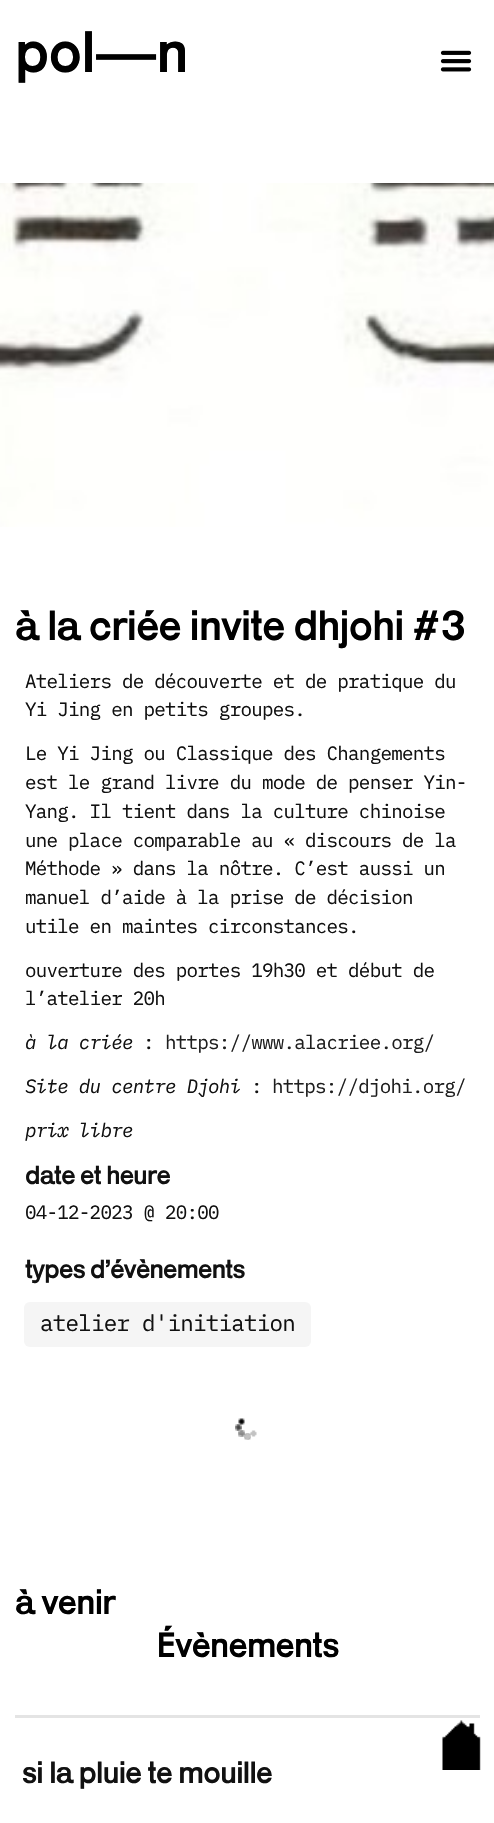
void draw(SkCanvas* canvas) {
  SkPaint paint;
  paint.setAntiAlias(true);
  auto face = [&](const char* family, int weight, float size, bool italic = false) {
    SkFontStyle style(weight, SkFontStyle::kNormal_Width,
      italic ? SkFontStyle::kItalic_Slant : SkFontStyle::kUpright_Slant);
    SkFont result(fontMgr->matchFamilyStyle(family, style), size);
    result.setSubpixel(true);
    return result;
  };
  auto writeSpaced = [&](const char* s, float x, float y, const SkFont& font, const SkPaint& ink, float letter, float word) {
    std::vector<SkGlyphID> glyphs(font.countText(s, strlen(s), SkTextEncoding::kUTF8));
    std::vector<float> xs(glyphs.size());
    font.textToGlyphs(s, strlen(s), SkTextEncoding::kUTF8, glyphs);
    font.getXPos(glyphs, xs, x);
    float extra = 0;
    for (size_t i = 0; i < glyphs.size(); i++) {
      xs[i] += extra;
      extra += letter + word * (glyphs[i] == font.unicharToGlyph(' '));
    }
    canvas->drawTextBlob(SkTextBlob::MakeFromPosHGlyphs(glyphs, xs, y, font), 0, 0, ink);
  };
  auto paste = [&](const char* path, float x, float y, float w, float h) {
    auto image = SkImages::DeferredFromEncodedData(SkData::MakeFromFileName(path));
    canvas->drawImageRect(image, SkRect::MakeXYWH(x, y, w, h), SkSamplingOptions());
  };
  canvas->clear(0xffffffff);
  paste("img/1.png", 440, 50, 32, 22);
  paste("img/2.png", 0, 183, 494, 344);
  paint.setColor(0xfff5f5f5);
  canvas->drawRoundRect(SkRect::MakeXYWH(24, 1302, 287, 45), 6, 6, paint);
  paste("img/4.png", 235, 1424, 22, 16);
  paste("img/3.png", 235, 1418, 16, 22);
  paint.setColor(0xffe4e4e4);
  canvas->drawRect(SkRect::MakeXYWH(15, 1715, 465, 3), paint);
  paste("img/5.png", 442, 1720, 39, 50);
  auto f0 = face("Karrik", 400, 60);
  paint.setColor(0xff000000);
  writeSpaced("pol—n", 15, 72, f0, paint, -0.75f, 0);
  auto f1 = face("Karrik", 400, 43.25f);
  writeSpaced("à la criée invite dhjohi #3", 15, 640, f1, paint, -0.75f, 0);
  auto f2 = face("IBM Plex Mono", 400, 19.2f);
  paint.setColor(0xff111111);
  {
    const struct { const char* s; float x, y; } items[] = {
      {"Ateliers de découverte et de pratique du", 25, 688},
      {"Yi Jing en petits groupes.", 25, 716},
      {"Le Yi Jing ou Classique des Changements", 25, 760},
      {"est le grand livre du mode de penser Yin-", 25, 789},
      {"Yang. Il tient dans la culture chinoise", 25, 818},
      {"une place comparable au « discours de la", 25, 847},
      {"Méthode » dans la nôtre. C’est aussi un", 25, 875},
      {"manuel d’aide à la prise de décision", 25, 904},
      {"utile en maintes circonstances.", 25, 933},
      {"ouverture des portes 19h30 et début de", 25, 977},
      {"l’atelier 20h", 25, 1005},
    };
    for (auto [s, x, y] : items) {
      writeSpaced(s, x, y, f2, paint, -0.75f, 0);
    }
  }
  auto f3 = face("IBM Plex Mono", 400, 19.2f, true);
  writeSpaced("à la criée", 25, 1049, f3, paint, -0.75f, 0);
  writeSpaced(":", 143, 1049, f2, paint, -0.75f, 0);
  paint.setColor(0xff1e1e1e);
  writeSpaced("https://www.alacriee.org/", 165, 1049, f2, paint, -0.75f, 0);
  paint.setColor(0xff111111);
  writeSpaced("Site du centre Djohi", 25, 1093, f3, paint, -0.75f, 0);
  writeSpaced(":", 251, 1093, f2, paint, -0.75f, 0);
  paint.setColor(0xff1e1e1e);
  writeSpaced("https://djohi.org/", 272, 1093, f2, paint, -0.75f, 0);
  paint.setColor(0xff111111);
  writeSpaced("prix libre", 25, 1137, f3, paint, -0.75f, 0);
  auto f4 = face("Karrik", 400, 27);
  writeSpaced("date et heure", 25, 1184, f4, paint, -0.75f, 0);
  writeSpaced("04-12-2023 @ 20:00", 25, 1219, f2, paint, -0.75f, 0);
  writeSpaced("types d’évènements", 25, 1278, f4, paint, -0.75f, 0);
  auto f5 = face("IBM Plex Mono", 400, 22.5f);
  writeSpaced("atelier d'initiation", 40, 1331, f5, paint, -0.75f, 0);
  auto f6 = face("Karrik", 400, 36);
  paint.setColor(0xff000000);
  writeSpaced("à venir", 15, 1614, f6, paint, -0.75f, 0);
  writeSpaced("Évènements", 156, 1657, f6, paint, -0.75f, 0);
  auto f7 = face("Karrik", 400, 31.5f);
  paint.setColor(0xff111111);
  writeSpaced("si la pluie te mouille", 22, 1783, f7, paint, -0.75f, 0);
}
